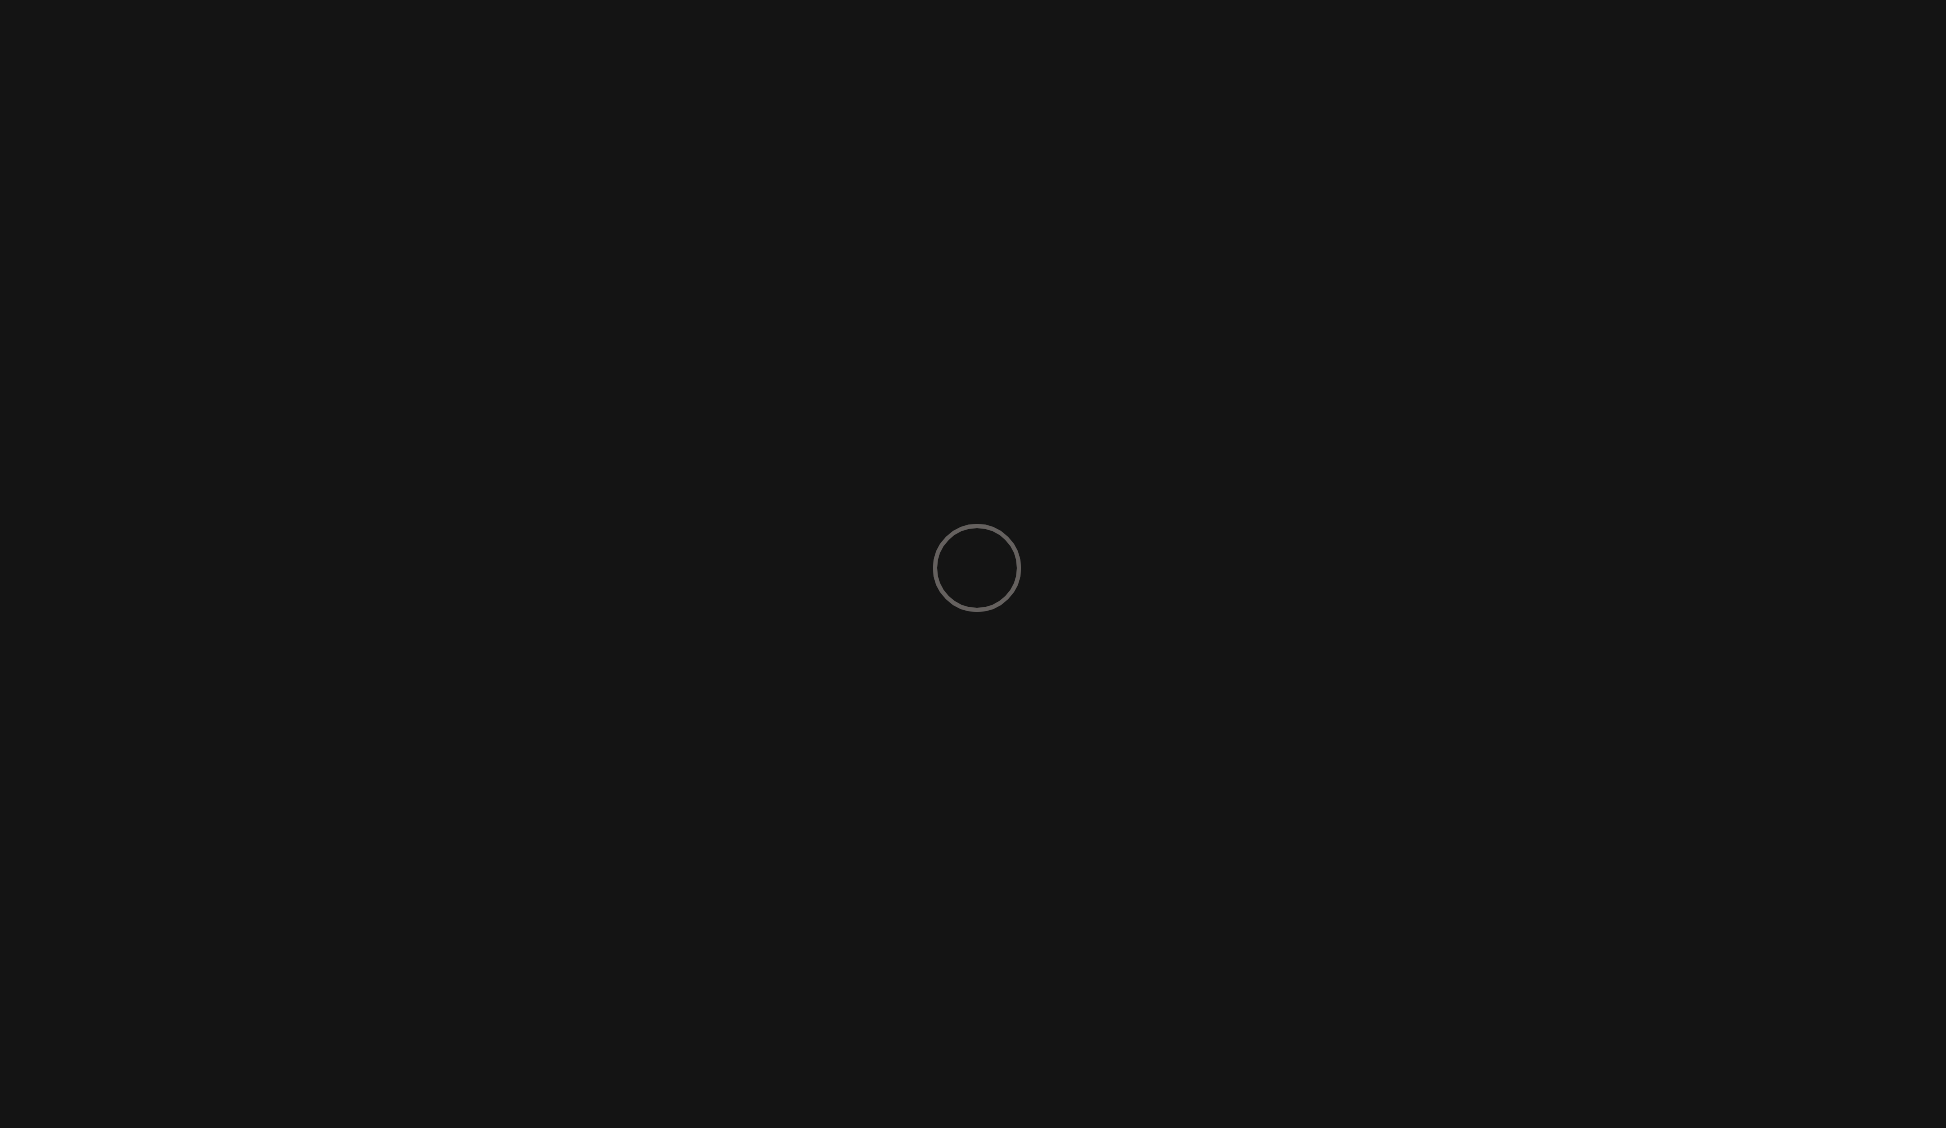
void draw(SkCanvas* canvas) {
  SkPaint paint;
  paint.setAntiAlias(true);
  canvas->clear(0xff141414);
  paint.setStroke(true);
  paint.setStrokeWidth(4);
  paint.setColor(0xff65615f);
  canvas->drawCircle(977, 568, 42, paint);
  canvas->drawCircle(977, 568, 42, paint);
}
